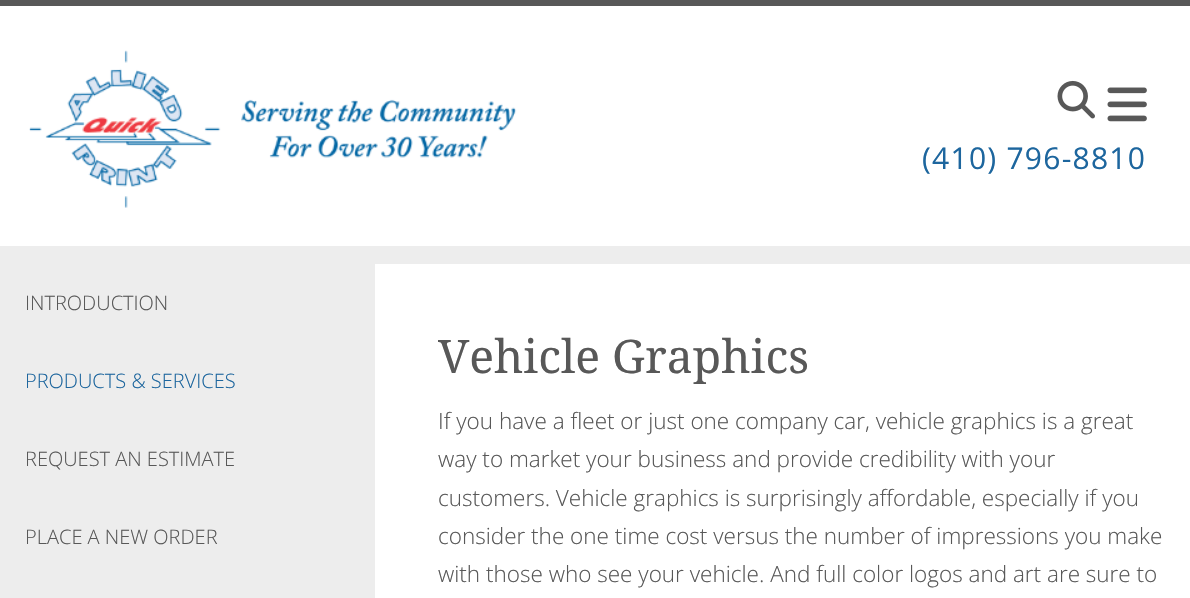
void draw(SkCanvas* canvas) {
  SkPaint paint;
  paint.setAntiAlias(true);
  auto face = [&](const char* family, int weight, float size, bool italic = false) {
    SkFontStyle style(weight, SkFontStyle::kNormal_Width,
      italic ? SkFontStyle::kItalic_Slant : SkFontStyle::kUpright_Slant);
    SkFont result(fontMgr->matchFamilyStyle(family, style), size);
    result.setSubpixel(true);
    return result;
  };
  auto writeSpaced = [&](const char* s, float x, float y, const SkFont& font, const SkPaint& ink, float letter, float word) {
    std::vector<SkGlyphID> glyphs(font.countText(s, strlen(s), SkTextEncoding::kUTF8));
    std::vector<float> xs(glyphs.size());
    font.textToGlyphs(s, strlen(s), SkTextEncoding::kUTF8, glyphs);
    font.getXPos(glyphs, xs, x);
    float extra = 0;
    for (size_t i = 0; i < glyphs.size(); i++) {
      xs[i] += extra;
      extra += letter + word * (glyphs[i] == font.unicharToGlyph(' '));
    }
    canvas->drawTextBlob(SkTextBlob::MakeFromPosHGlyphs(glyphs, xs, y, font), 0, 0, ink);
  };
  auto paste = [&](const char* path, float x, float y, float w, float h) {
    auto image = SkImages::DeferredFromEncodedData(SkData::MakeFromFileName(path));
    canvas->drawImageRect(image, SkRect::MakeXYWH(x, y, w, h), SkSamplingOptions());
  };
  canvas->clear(0xff585858);
  paint.setColor(0xffffffff);
  canvas->drawRect(SkRect::MakeXYWH(0, 6, 1190, 240), paint);
  paste("img/1.png", 29, 50, 488, 158);
  paste("img/2.png", 1057, 80, 38, 39);
  paste("img/3.png", 1107, 87, 40, 35);
  {
    const struct { float x, y, w, h; SkColor color; } items[] = {
      {0, 246, 1190, 18, 0xffededed},
      {375, 264, 815, 334, 0xffffffff},
      {0, 264, 375, 334, 0xffededed},
    };
    for (auto [x, y, w, h, color] : items) {
      paint.setColor(color);
      canvas->drawRect(SkRect::MakeXYWH(x, y, w, h), paint);
    }
  }
  auto f0 = face("Open Sans", 400, 30);
  paint.setColor(0xff1d669e);
  writeSpaced("(410) 796-8810", 922, 169, f0, paint, 1.25f, 0);
  auto f1 = face("Open Sans", 300, 20);
  paint.setColor(0xff585858);
  canvas->drawString("INTRODUCTION", 25, 310, f1, paint);
  paint.setColor(0xff1d669e);
  canvas->drawString("PRODUCTS & SERVICES", 25, 388, f1, paint);
  paint.setColor(0xff585858);
  canvas->drawString("REQUEST AN ESTIMATE", 25, 466, f1, paint);
  canvas->drawString("PLACE A NEW ORDER", 25, 544, f1, paint);
  auto f2 = face("Noto Serif", 400, 46.25f);
  canvas->drawString("Vehicle Graphics", 438, 373, f2, paint);
  auto f3 = face("Open Sans", 300, 22.5f);
  {
    const struct { const char* s; float x, y; } items[] = {
      {"If you have a fleet or just one company car, vehicle graphics is a great", 438, 429},
      {"way to market your business and provide credibility with your", 438, 467},
      {"customers. Vehicle graphics is surprisingly affordable, especially if you", 438, 506},
      {"consider the one time cost versus the number of impressions you make", 438, 544},
      {"with those who see your vehicle. And full color logos and art are sure to", 438, 582},
    };
    for (auto [s, x, y] : items) {
      canvas->drawString(s, x, y, f3, paint);
    }
  }
}
